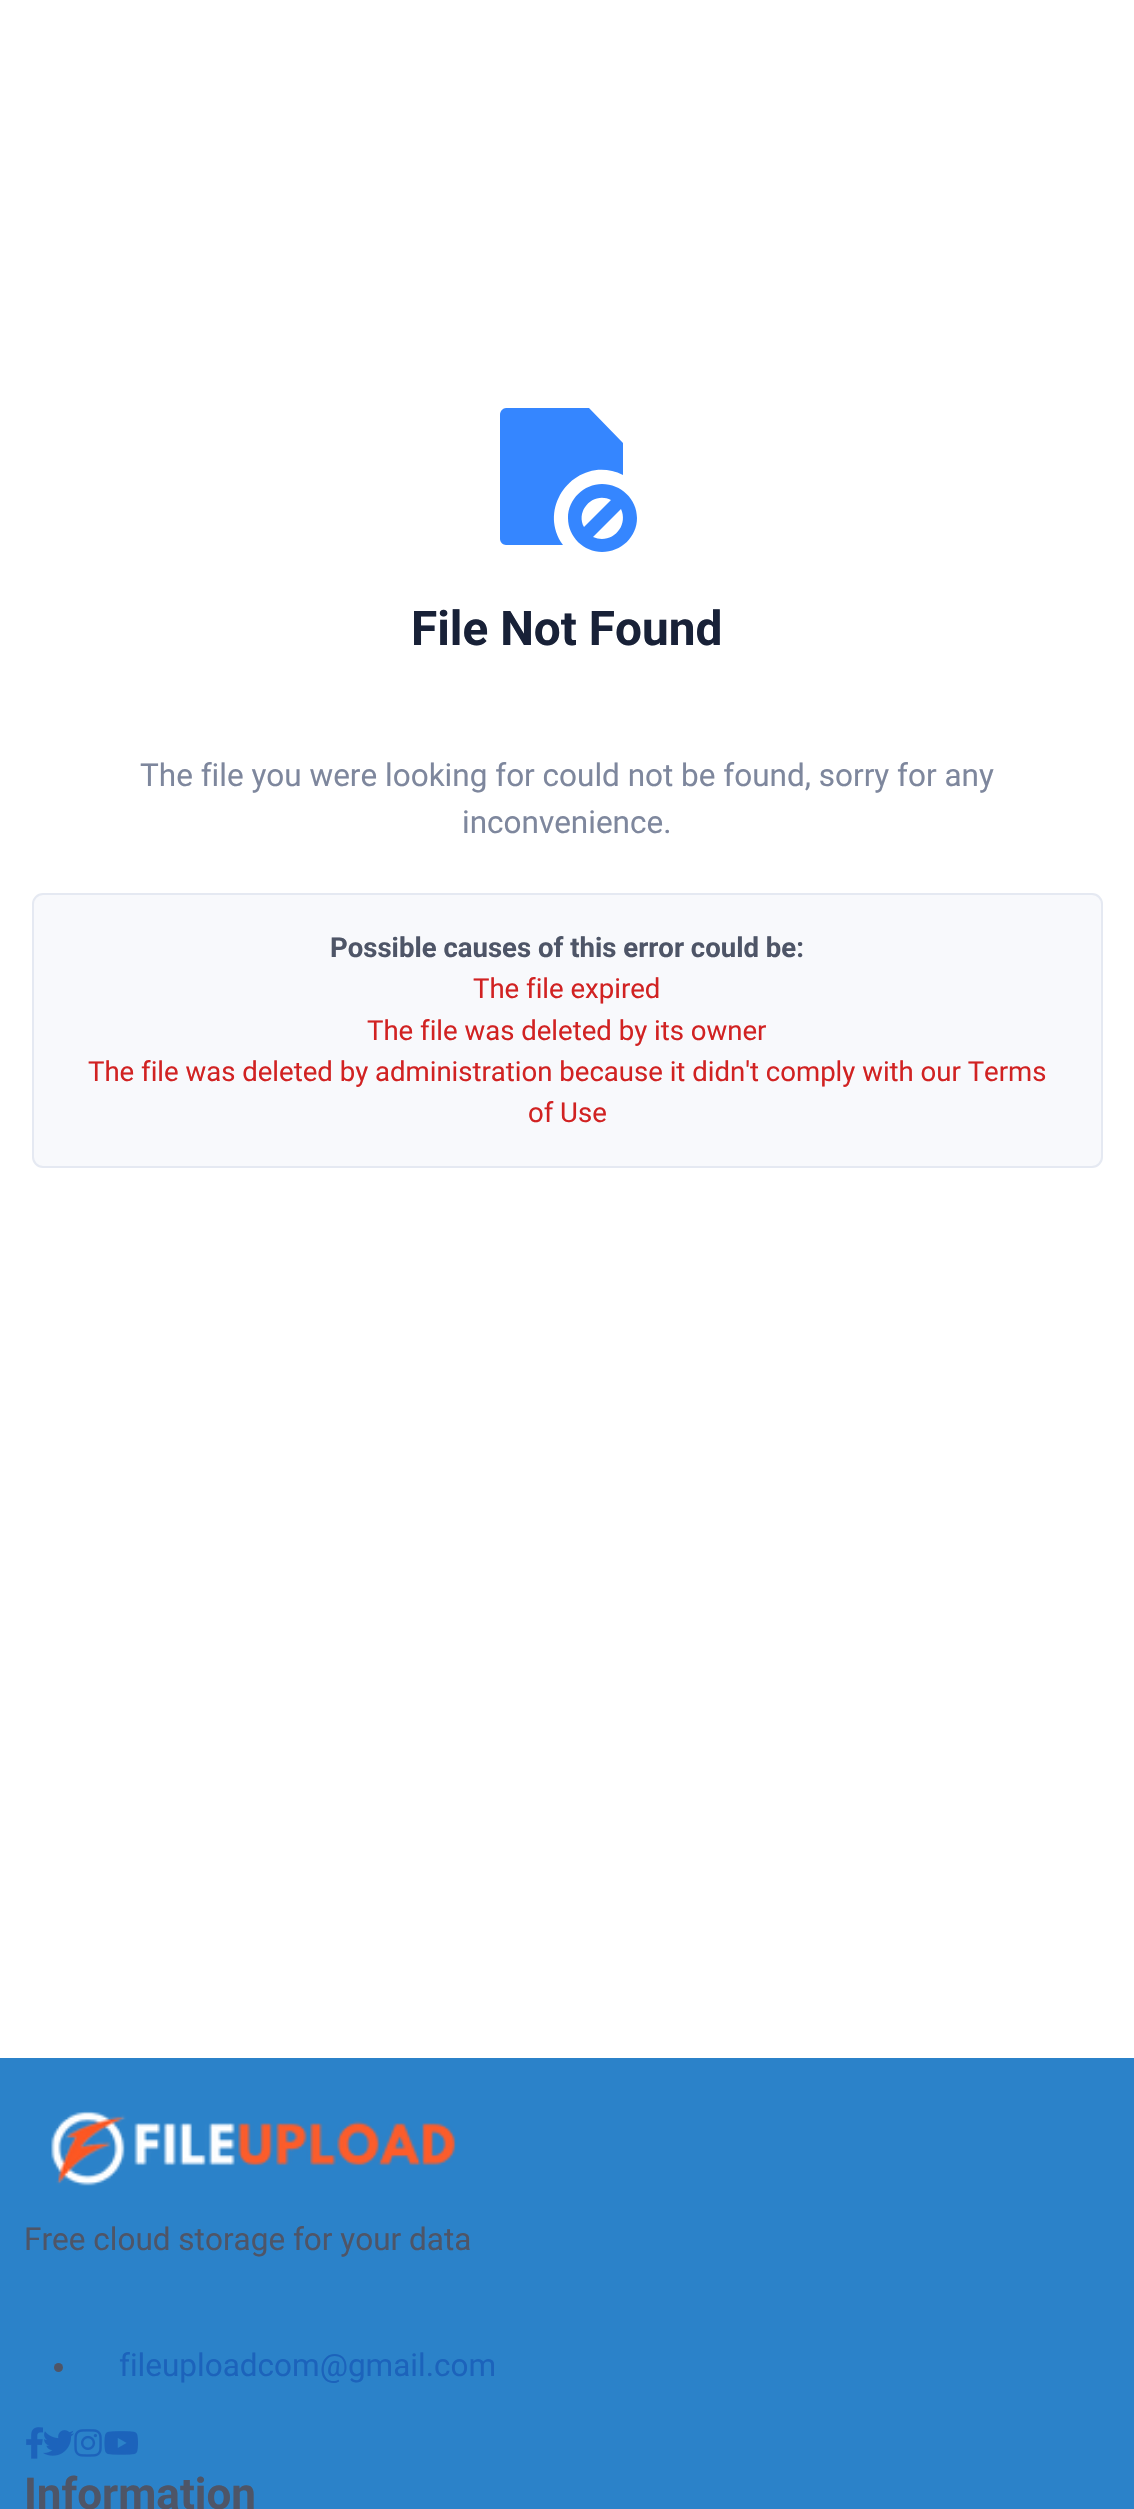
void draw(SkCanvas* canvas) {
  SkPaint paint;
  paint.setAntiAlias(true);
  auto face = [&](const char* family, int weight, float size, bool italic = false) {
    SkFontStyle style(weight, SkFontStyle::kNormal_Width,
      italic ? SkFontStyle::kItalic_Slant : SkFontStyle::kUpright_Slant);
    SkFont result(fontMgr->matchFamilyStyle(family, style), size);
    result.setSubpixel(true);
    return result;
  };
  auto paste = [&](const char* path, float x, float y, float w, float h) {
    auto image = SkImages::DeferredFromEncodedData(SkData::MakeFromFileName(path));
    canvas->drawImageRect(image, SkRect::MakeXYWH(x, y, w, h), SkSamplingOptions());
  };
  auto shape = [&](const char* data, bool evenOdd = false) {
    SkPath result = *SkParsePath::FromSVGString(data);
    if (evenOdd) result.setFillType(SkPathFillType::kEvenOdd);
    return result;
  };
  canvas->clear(0xffffffff);
  paint.setColor(0xff3586ff);
  canvas->drawPath(shape("M623 475C578 453 535 506 563 545H506C503 545 500 542 500 539V415C500 411 503 408 506 408H589L623 443ZM602 552C584 552 568 537 568 518C568 499 584 484 602 484C621 484 637 499 637 518C637 537 621 552 602 552ZM593 537C611 545 629 527 621 509ZM584 527L611 500C594 491 575 510 584 527Z"), paint);
  paint.setColor(0xfff8f9fc);
  canvas->drawRoundRect(SkRect::MakeXYWH(33, 894, 1069, 273), 10, 10, paint);
  paint.setStroke(true);
  paint.setStrokeWidth(2);
  paint.setColor(0xffe5e9f2);
  canvas->drawRoundRect(SkRect::MakeXYWH(33, 894, 1069, 273), 10, 10, paint);
  paint.setStroke(false);
  paint.setColor(0xff2b82c9);
  canvas->drawRect(SkRect::MakeXYWH(0, 2058, 1134, 451), paint);
  paste("img/1.png", 51, 2110, 405, 76);
  paint.setColor(0xff4e5567);
  canvas->drawCircle(58.5f, 2367.5f, 4.5f, paint);
  paste("img/2.png", 26, 2427, 17, 32);
  paste("img/3.png", 43, 2430, 31, 26);
  paste("img/4.png", 74, 2429, 28, 28);
  paste("img/5.png", 104, 2431, 34, 24);
  auto f0 = face("Roboto", 700, 47.75f);
  paint.setColor(0xff182137);
  canvas->drawString("File Not Found", 411, 645, f0, paint);
  auto f1 = face("Roboto", 400, 31.5f);
  paint.setColor(0xff7e879d);
  canvas->drawString("The file you were looking for could not be found, sorry for any", 140, 786, f1, paint);
  canvas->drawString("inconvenience.", 462, 833, f1, paint);
  auto f2 = face("Roboto", 700, 27.55f);
  paint.setColor(0xff4e5567);
  canvas->drawString("Possible causes of this error could be:", 330, 957, f2, paint);
  auto f3 = face("Roboto", 400, 27.55f);
  paint.setColor(0xffd12222);
  {
    const struct { const char* s; float x, y; } items[] = {
      {"The file expired", 473, 998},
      {"The file was deleted by its owner", 367, 1040},
      {"The file was deleted by administration because it didn't comply with our Terms", 88, 1081},
      {"of Use", 528, 1122},
    };
    for (auto [s, x, y] : items) {
      canvas->drawString(s, x, y, f3, paint);
    }
  }
  paint.setColor(0xff4e5567);
  canvas->drawString("Free cloud storage for your data", 24, 2250, f1, paint);
  paint.setColor(0xff1c63bb);
  canvas->drawString("fileuploadcom@gmail.com", 119, 2376, f1, paint);
  auto f4 = face("Roboto", 700, 44);
  paint.setColor(0xff4e5567);
  canvas->drawString("Information", 24, 2509, f4, paint);
}
